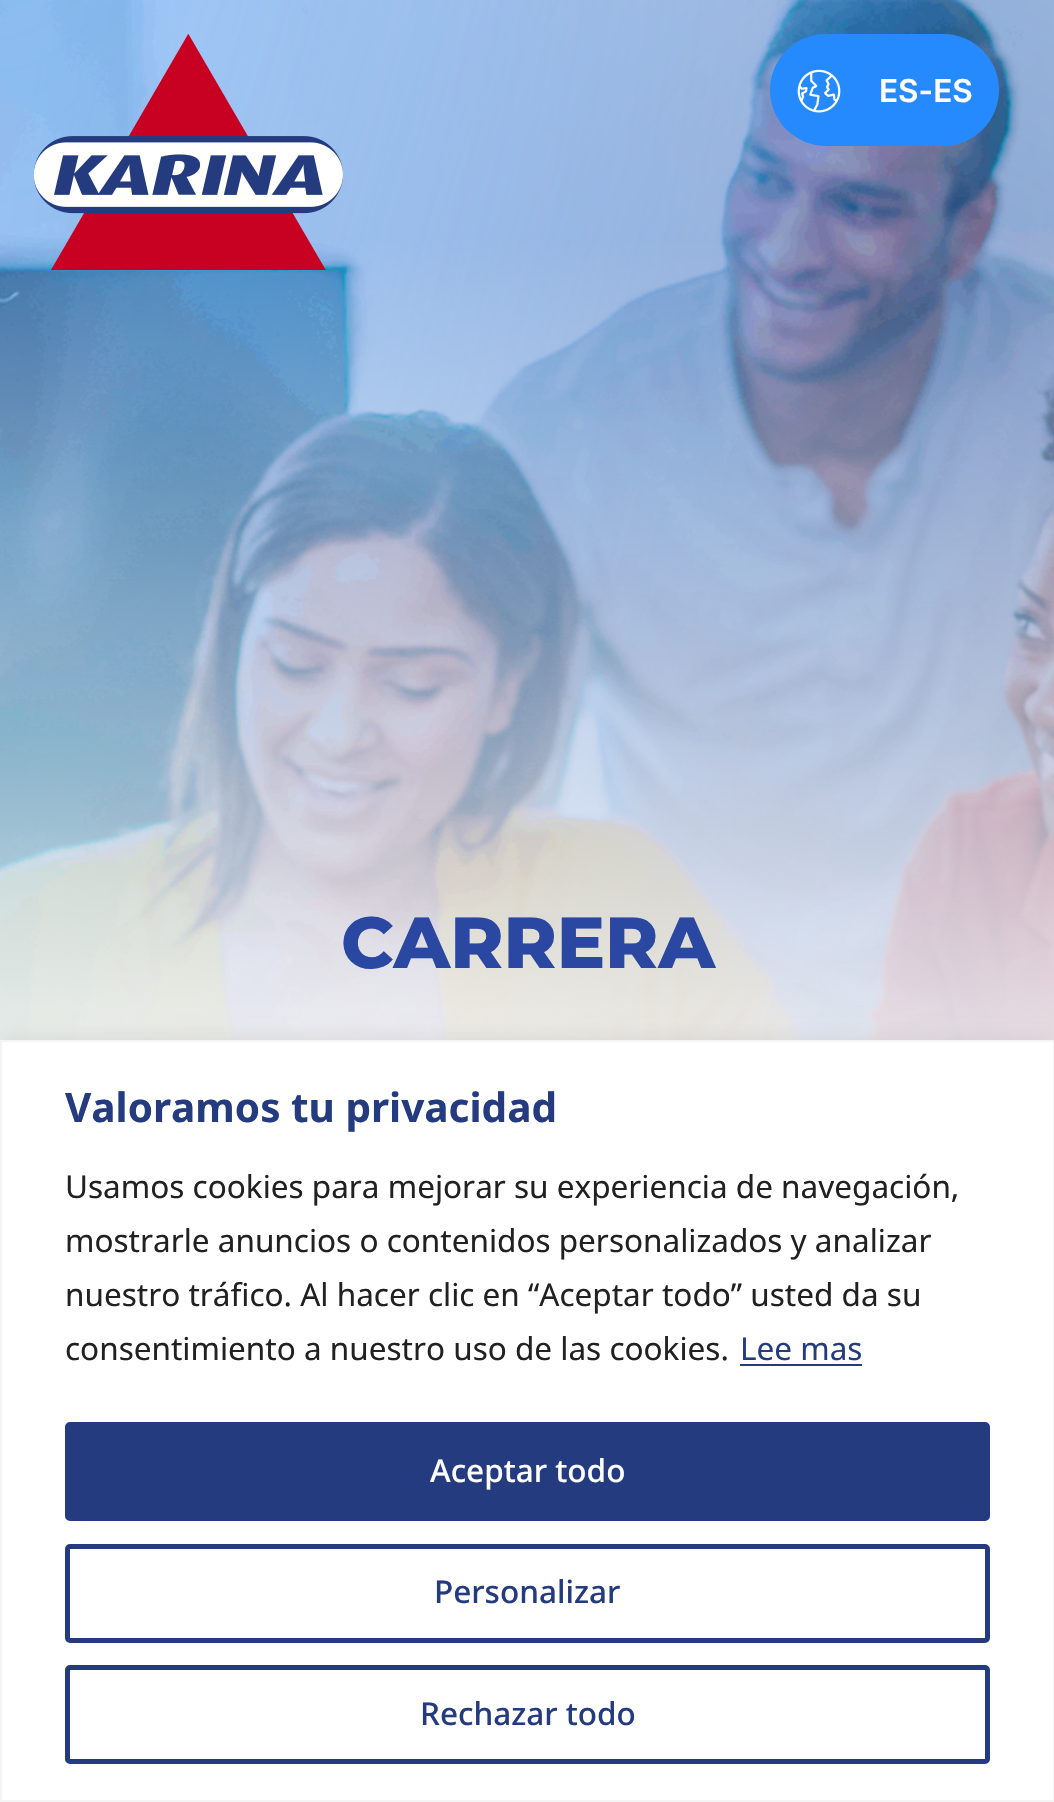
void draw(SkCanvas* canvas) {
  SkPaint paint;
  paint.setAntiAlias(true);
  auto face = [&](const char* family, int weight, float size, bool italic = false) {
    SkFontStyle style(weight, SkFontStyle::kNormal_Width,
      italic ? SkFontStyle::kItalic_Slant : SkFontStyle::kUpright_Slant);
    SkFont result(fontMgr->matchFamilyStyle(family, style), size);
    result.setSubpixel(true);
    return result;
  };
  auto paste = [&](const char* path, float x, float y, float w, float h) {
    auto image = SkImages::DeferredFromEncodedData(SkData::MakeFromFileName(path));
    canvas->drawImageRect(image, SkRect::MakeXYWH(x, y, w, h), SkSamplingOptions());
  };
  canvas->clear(0xffffffff);
  paste("img/3.png", 0, 0, 1054, 1040);
  paste("img/1.png", 34, 34, 309, 236);
  paint.setColor(0xff268aff);
  canvas->drawRoundRect(SkRect::MakeXYWH(770, 34, 229, 112), 56, 56, paint);
  paste("img/2.png", 797, 69, 44, 44);
  paint.setColor(0x4dacabab);
  paint.setMaskFilter(SkMaskFilter::MakeBlur(kNormal_SkBlurStyle, 11));
  canvas->drawRect(SkRect::MakeXYWH(0, 1037, 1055, 763), paint);
  paint.setMaskFilter(nullptr);
  paint.setColor(0xffffffff);
  canvas->drawRect(SkRect::MakeXYWH(1, 1041, 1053, 760), paint);
  paint.setStroke(true);
  paint.setStrokeWidth(2);
  paint.setColor(0xfff4f4f4);
  canvas->drawRect(SkRect::MakeXYWH(1, 1041, 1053, 760), paint);
  paint.setStroke(false);
  paint.setColor(0xff253b80);
  canvas->drawRect(SkRect::MakeXYWH(740, 1364, 122, 2), paint);
  canvas->drawRoundRect(SkRect::MakeXYWH(67.5f, 1424.5f, 920, 94), 2.5f, 2.5f, paint);
  paint.setStroke(true);
  paint.setStrokeWidth(5);
  canvas->drawRoundRect(SkRect::MakeXYWH(67.5f, 1424.5f, 920, 94), 2.5f, 2.5f, paint);
  canvas->drawRoundRect(SkRect::MakeXYWH(67.5f, 1546.5f, 920, 94), 2.5f, 2.5f, paint);
  canvas->drawRoundRect(SkRect::MakeXYWH(67.5f, 1667.5f, 920, 94), 2.5f, 2.5f, paint);
  auto f0 = face("Inter", 600, 31.5f);
  paint.setStroke(false);
  paint.setColor(0xffffffff);
  canvas->drawString("ES-ES", 879, 102, f0, paint);
  auto f1 = face("Montserrat", 800, 72);
  paint.setColor(0xff2a47a2);
  canvas->drawString("CARRERA", 341, 968, f1, paint);
  auto f2 = face("Noto Sans", 700, 40.5f);
  paint.setColor(0xff253b80);
  canvas->drawString("Valoramos tu privacidad", 65, 1122, f2, paint);
  auto f3 = face("Noto Sans", 400, 31.5f);
  paint.setColor(0xff212121);
  {
    const struct { const char* s; float x, y; } items[] = {
      {"Usamos cookies para mejorar su experiencia de navegación,", 65, 1198},
      {"mostrarle anuncios o contenidos personalizados y analizar", 65, 1252},
      {"nuestro tráfico. Al hacer clic en “Aceptar todo” usted da su", 65, 1306},
      {"consentimiento a nuestro uso de las cookies.", 65, 1360},
    };
    for (auto [s, x, y] : items) {
      canvas->drawString(s, x, y, f3, paint);
    }
  }
  paint.setColor(0xff253b80);
  canvas->drawString("Lee mas", 740, 1360, f3, paint);
  auto f4 = face("Noto Sans", 500, 31.5f);
  paint.setColor(0xffffffff);
  canvas->drawString("Aceptar todo", 430, 1482, f4, paint);
  paint.setColor(0xff253b80);
  canvas->drawString("Personalizar", 434, 1603, f4, paint);
  canvas->drawString("Rechazar todo", 420, 1725, f4, paint);
}
